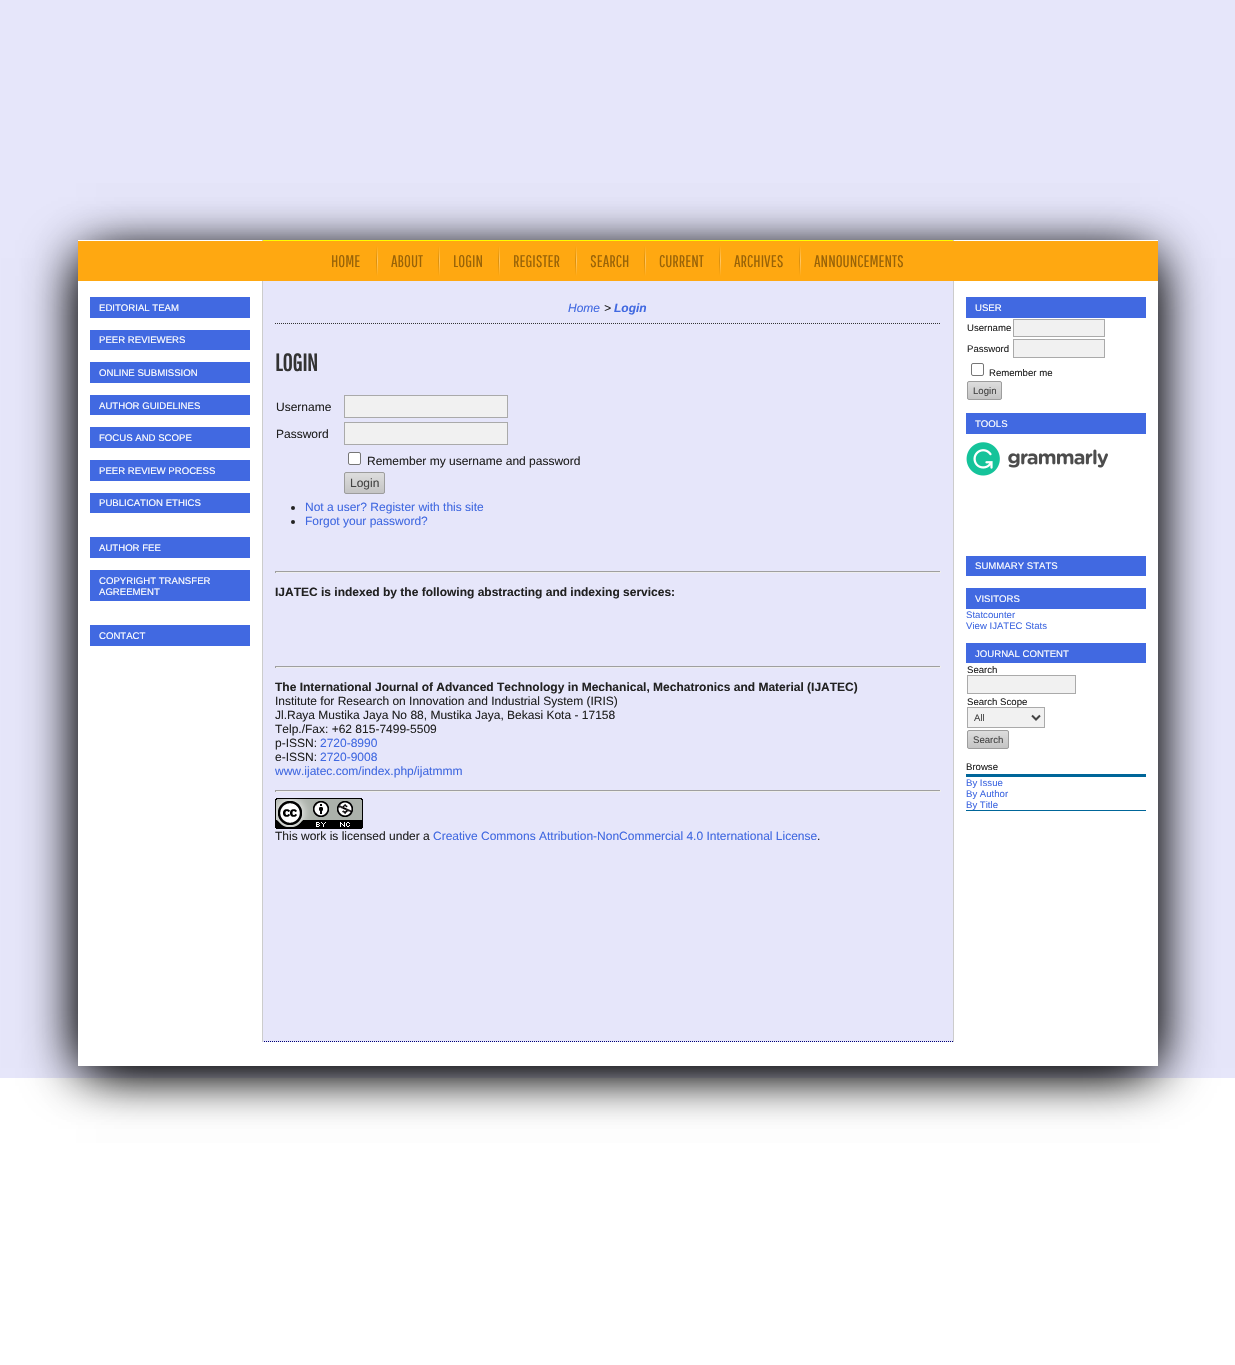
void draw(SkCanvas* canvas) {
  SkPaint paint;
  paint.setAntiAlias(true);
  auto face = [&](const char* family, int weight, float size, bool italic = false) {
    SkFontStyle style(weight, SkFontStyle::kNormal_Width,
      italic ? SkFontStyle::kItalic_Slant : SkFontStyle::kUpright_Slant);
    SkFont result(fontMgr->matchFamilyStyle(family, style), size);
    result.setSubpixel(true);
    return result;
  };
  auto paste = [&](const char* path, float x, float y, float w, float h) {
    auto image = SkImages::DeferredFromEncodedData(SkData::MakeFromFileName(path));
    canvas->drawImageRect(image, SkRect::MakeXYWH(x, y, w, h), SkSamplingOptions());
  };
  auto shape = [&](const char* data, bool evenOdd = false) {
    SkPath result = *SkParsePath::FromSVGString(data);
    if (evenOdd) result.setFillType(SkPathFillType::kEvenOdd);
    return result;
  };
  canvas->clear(0xffffffff);
  paint.setColor(0xffe6e6fa);
  canvas->drawRect(SkRect::MakeXYWH(0, 0, 1235, 1078), paint);
  paint.setColor(0xff000000);
  paint.setMaskFilter(SkMaskFilter::MakeBlur(kNormal_SkBlurStyle, 25));
  canvas->drawRect(SkRect::MakeXYWH(96, 258, 1064, 810), paint);
  paint.setMaskFilter(nullptr);
  paint.setMaskFilter(SkMaskFilter::MakeBlur(kNormal_SkBlurStyle, 25));
  canvas->drawRect(SkRect::MakeXYWH(76, 258, 1064, 810), paint);
  paint.setMaskFilter(nullptr);
  {
    const struct { float x, y, w, h; SkColor color; } items[] = {
      {78, 240, 1080, 826, 0xffffffff},
      {263, 281, 690, 761, 0xffe6e6fa},
      {262, 240, 692, 1, 0xffffff00},
      {953, 240, 1, 802, 0xffcccccc},
    };
    for (auto [x, y, w, h, color] : items) {
      paint.setColor(color);
      canvas->drawRect(SkRect::MakeXYWH(x, y, w, h), paint);
    }
  }
  paint.setStroke(true);
  paint.setStrokeWidth(1);
  paint.setColor(0xff000077);
  paint.setPathEffect(SkDashPathEffect::Make({{1, 1}}, 0));
  canvas->drawPath(shape("M262 1041.5H954"), paint);
  paint.setPathEffect(nullptr);
  paint.setStroke(false);
  paint.setColor(0xffcccccc);
  canvas->drawRect(SkRect::MakeXYWH(262, 240, 1, 802), paint);
  paint.setColor(0xffffa811);
  canvas->drawRect(SkRect::MakeXYWH(78, 241, 1080, 40), paint);
  {
    const SkColor colors[] = {0xffffa811, 0xffd98f0e, 0xffffa811};
    const float stops[] = {0, 0.5f, 1};
    const SkPoint ends[] = {{377, 246}, {377, 276}};
    paint.setShader(SkGradientShader::MakeLinear(ends, colors, stops, 3, SkTileMode::kClamp));
    paint.setAlpha(255);
  }
  canvas->drawRect(SkRect::MakeXYWH(376, 246, 1, 30), paint);
  {
    const SkColor colors[] = {0xffffa811, 0xffffc664, 0xffffa811};
    const float stops[] = {0, 0.5f, 1};
    const SkPoint ends[] = {{378, 246}, {378, 276}};
    paint.setShader(SkGradientShader::MakeLinear(ends, colors, stops, 3, SkTileMode::kClamp));
    paint.setAlpha(255);
  }
  canvas->drawRect(SkRect::MakeXYWH(377, 246, 1, 30), paint);
  {
    const SkColor colors[] = {0xffffa811, 0xffd98f0e, 0xffffa811};
    const float stops[] = {0, 0.5f, 1};
    const SkPoint ends[] = {{439, 246}, {439, 276}};
    paint.setShader(SkGradientShader::MakeLinear(ends, colors, stops, 3, SkTileMode::kClamp));
    paint.setAlpha(255);
  }
  canvas->drawRect(SkRect::MakeXYWH(438, 246, 1, 30), paint);
  {
    const SkColor colors[] = {0xffffa811, 0xffffc664, 0xffffa811};
    const float stops[] = {0, 0.5f, 1};
    const SkPoint ends[] = {{440, 246}, {440, 276}};
    paint.setShader(SkGradientShader::MakeLinear(ends, colors, stops, 3, SkTileMode::kClamp));
    paint.setAlpha(255);
  }
  canvas->drawRect(SkRect::MakeXYWH(439, 246, 1, 30), paint);
  {
    const SkColor colors[] = {0xffffa811, 0xffd98f0e, 0xffffa811};
    const float stops[] = {0, 0.5f, 1};
    const SkPoint ends[] = {{499, 246}, {499, 276}};
    paint.setShader(SkGradientShader::MakeLinear(ends, colors, stops, 3, SkTileMode::kClamp));
    paint.setAlpha(255);
  }
  canvas->drawRect(SkRect::MakeXYWH(498, 246, 1, 30), paint);
  {
    const SkColor colors[] = {0xffffa811, 0xffffc664, 0xffffa811};
    const float stops[] = {0, 0.5f, 1};
    const SkPoint ends[] = {{500, 246}, {500, 276}};
    paint.setShader(SkGradientShader::MakeLinear(ends, colors, stops, 3, SkTileMode::kClamp));
    paint.setAlpha(255);
  }
  canvas->drawRect(SkRect::MakeXYWH(499, 246, 1, 30), paint);
  {
    const SkColor colors[] = {0xffffa811, 0xffd98f0e, 0xffffa811};
    const float stops[] = {0, 0.5f, 1};
    const SkPoint ends[] = {{576, 246}, {576, 276}};
    paint.setShader(SkGradientShader::MakeLinear(ends, colors, stops, 3, SkTileMode::kClamp));
    paint.setAlpha(255);
  }
  canvas->drawRect(SkRect::MakeXYWH(575, 246, 1, 30), paint);
  {
    const SkColor colors[] = {0xffffa811, 0xffffc664, 0xffffa811};
    const float stops[] = {0, 0.5f, 1};
    const SkPoint ends[] = {{577, 246}, {577, 276}};
    paint.setShader(SkGradientShader::MakeLinear(ends, colors, stops, 3, SkTileMode::kClamp));
    paint.setAlpha(255);
  }
  canvas->drawRect(SkRect::MakeXYWH(576, 246, 1, 30), paint);
  {
    const SkColor colors[] = {0xffffa811, 0xffd98f0e, 0xffffa811};
    const float stops[] = {0, 0.5f, 1};
    const SkPoint ends[] = {{645, 246}, {645, 276}};
    paint.setShader(SkGradientShader::MakeLinear(ends, colors, stops, 3, SkTileMode::kClamp));
    paint.setAlpha(255);
  }
  canvas->drawRect(SkRect::MakeXYWH(644, 246, 1, 30), paint);
  {
    const SkColor colors[] = {0xffffa811, 0xffffc664, 0xffffa811};
    const float stops[] = {0, 0.5f, 1};
    const SkPoint ends[] = {{646, 246}, {646, 276}};
    paint.setShader(SkGradientShader::MakeLinear(ends, colors, stops, 3, SkTileMode::kClamp));
    paint.setAlpha(255);
  }
  canvas->drawRect(SkRect::MakeXYWH(645, 246, 1, 30), paint);
  {
    const SkColor colors[] = {0xffffa811, 0xffd98f0e, 0xffffa811};
    const float stops[] = {0, 0.5f, 1};
    const SkPoint ends[] = {{720, 246}, {720, 276}};
    paint.setShader(SkGradientShader::MakeLinear(ends, colors, stops, 3, SkTileMode::kClamp));
    paint.setAlpha(255);
  }
  canvas->drawRect(SkRect::MakeXYWH(719, 246, 1, 30), paint);
  {
    const SkColor colors[] = {0xffffa811, 0xffffc664, 0xffffa811};
    const float stops[] = {0, 0.5f, 1};
    const SkPoint ends[] = {{721, 246}, {721, 276}};
    paint.setShader(SkGradientShader::MakeLinear(ends, colors, stops, 3, SkTileMode::kClamp));
    paint.setAlpha(255);
  }
  canvas->drawRect(SkRect::MakeXYWH(720, 246, 1, 30), paint);
  {
    const SkColor colors[] = {0xffffa811, 0xffd98f0e, 0xffffa811};
    const float stops[] = {0, 0.5f, 1};
    const SkPoint ends[] = {{800, 246}, {800, 276}};
    paint.setShader(SkGradientShader::MakeLinear(ends, colors, stops, 3, SkTileMode::kClamp));
    paint.setAlpha(255);
  }
  canvas->drawRect(SkRect::MakeXYWH(799, 246, 1, 30), paint);
  {
    const SkColor colors[] = {0xffffa811, 0xffffc664, 0xffffa811};
    const float stops[] = {0, 0.5f, 1};
    const SkPoint ends[] = {{801, 246}, {801, 276}};
    paint.setShader(SkGradientShader::MakeLinear(ends, colors, stops, 3, SkTileMode::kClamp));
    paint.setAlpha(255);
  }
  canvas->drawRect(SkRect::MakeXYWH(800, 246, 1, 30), paint);
  paint.setStroke(true);
  paint.setShader(nullptr);
  paint.setColor(0xff333333);
  paint.setPathEffect(SkDashPathEffect::Make({{1, 1}}, 0));
  canvas->drawPath(shape("M275 323.5H941"), paint);
  paint.setPathEffect(nullptr);
  paint.setStroke(false);
  paint.setColor(0xfff1f1f1);
  canvas->drawRect(SkRect::MakeXYWH(344.5f, 395.5f, 163, 22), paint);
  paint.setStroke(true);
  paint.setColor(0xffaaaaaa);
  canvas->drawRect(SkRect::MakeXYWH(344.5f, 395.5f, 163, 22), paint);
  paint.setStroke(false);
  paint.setColor(0xfff1f1f1);
  canvas->drawRect(SkRect::MakeXYWH(344.5f, 422.5f, 163, 22), paint);
  paint.setStroke(true);
  paint.setColor(0xffaaaaaa);
  canvas->drawRect(SkRect::MakeXYWH(344.5f, 422.5f, 163, 22), paint);
  paint.setStroke(false);
  paint.setColor(0xffffffff);
  canvas->drawRoundRect(SkRect::MakeXYWH(348.5f, 452.5f, 12, 12), 1.5f, 1.5f, paint);
  paint.setStroke(true);
  paint.setColor(0xff767676);
  canvas->drawRoundRect(SkRect::MakeXYWH(348.5f, 452.5f, 12, 12), 1.5f, 1.5f, paint);
  canvas->save();
  canvas->clipPath(shape("M346 472H383C384 472 385 473 385 474V492C385 493 384 494 383 494H346C345 494 344 493 344 492V474C344 473 345 472 346 472Z"), true);
  paint.setStroke(false);
  {
    const SkColor colors[] = {0xffdddddd, 0xffc4c4c4};
    const float stops[] = {0, 1};
    const SkPoint ends[] = {{365, 473}, {365, 493}};
    paint.setShader(SkGradientShader::MakeLinear(ends, colors, stops, 2, SkTileMode::kClamp));
    paint.setAlpha(255);
  }
  canvas->drawRect(SkRect::MakeXYWH(344, 473, 41, 20), paint);
  canvas->restore();
  paint.setStroke(true);
  paint.setShader(nullptr);
  paint.setColor(0xff9d9d9d);
  canvas->drawRoundRect(SkRect::MakeXYWH(344.5f, 472.5f, 40, 21), 1.5f, 1.5f, paint);
  paint.setStroke(false);
  paint.setColor(0xff222222);
  canvas->drawCircle(293, 508, 2, paint);
  canvas->drawCircle(293, 522, 2, paint);
  {
    const struct { float x, y, w, h; SkColor color; } items[] = {
      {275, 571, 666, 1, 0xff9f9f9f},
      {940, 571, 1, 2, 0xffeeeeee},
      {275, 572, 666, 1, 0xffeeeeee},
      {275, 571, 1, 2, 0xff9f9f9f},
      {275, 666, 666, 1, 0xff9f9f9f},
      {940, 666, 1, 2, 0xffeeeeee},
      {275, 667, 666, 1, 0xffeeeeee},
      {275, 666, 1, 2, 0xff9f9f9f},
      {275, 790, 666, 1, 0xff9f9f9f},
      {940, 790, 1, 2, 0xffeeeeee},
      {275, 791, 666, 1, 0xffeeeeee},
      {275, 790, 1, 2, 0xff9f9f9f},
    };
    for (auto [x, y, w, h, color] : items) {
      paint.setColor(color);
      canvas->drawRect(SkRect::MakeXYWH(x, y, w, h), paint);
    }
  }
  paste("img/1.png", 275, 798, 88, 31);
  {
    const struct { float x, y, w, h; SkColor color; } items[] = {
      {90, 297, 160, 21, 0xff4169e1},
      {90, 330, 160, 20, 0xff4169e1},
      {90, 362, 160, 21, 0xff4169e1},
      {90, 395, 160, 20, 0xff4169e1},
      {90, 427, 160, 21, 0xff4169e1},
      {90, 460, 160, 21, 0xff4169e1},
      {90, 493, 160, 20, 0xff4169e1},
      {90, 537, 160, 21, 0xff4169e1},
      {90, 570, 160, 31, 0xff4169e1},
      {90, 625, 160, 21, 0xff4169e1},
      {966, 297, 180, 21, 0xff4169e1},
    };
    for (auto [x, y, w, h, color] : items) {
      paint.setColor(color);
      canvas->drawRect(SkRect::MakeXYWH(x, y, w, h), paint);
    }
  }
  paint.setColor(0xfff1f1f1);
  canvas->drawRect(SkRect::MakeXYWH(1013.5f, 319.5f, 91, 17), paint);
  paint.setStroke(true);
  paint.setColor(0xffaaaaaa);
  canvas->drawRect(SkRect::MakeXYWH(1013.5f, 319.5f, 91, 17), paint);
  paint.setStroke(false);
  paint.setColor(0xfff1f1f1);
  canvas->drawRect(SkRect::MakeXYWH(1013.5f, 339.5f, 91, 18), paint);
  paint.setStroke(true);
  paint.setColor(0xffaaaaaa);
  canvas->drawRect(SkRect::MakeXYWH(1013.5f, 339.5f, 91, 18), paint);
  paint.setColor(0xff767676);
  canvas->drawRoundRect(SkRect::MakeXYWH(971.5f, 363.5f, 12, 12), 1.5f, 1.5f, paint);
  canvas->save();
  canvas->clipPath(shape("M969 381H1000C1001 381 1002 382 1002 383V398C1002 399 1001 400 1000 400H969C968 400 967 399 967 398V383C967 382 968 381 969 381Z"), true);
  paint.setStroke(false);
  {
    const SkColor colors[] = {0xffdddddd, 0xffc4c4c4};
    const float stops[] = {0, 1};
    const SkPoint ends[] = {{985, 382}, {985, 399}};
    paint.setShader(SkGradientShader::MakeLinear(ends, colors, stops, 2, SkTileMode::kClamp));
    paint.setAlpha(255);
  }
  canvas->drawRect(SkRect::MakeXYWH(967, 382, 35, 17), paint);
  canvas->restore();
  paint.setStroke(true);
  paint.setShader(nullptr);
  paint.setColor(0xff9d9d9d);
  canvas->drawRoundRect(SkRect::MakeXYWH(967.5f, 381.5f, 34, 18), 1.5f, 1.5f, paint);
  paint.setStroke(false);
  paint.setColor(0xff4169e1);
  canvas->drawRect(SkRect::MakeXYWH(966, 413, 180, 21), paint);
  paste("img/2.png", 966, 442, 142, 34);
  {
    const struct { float x, y, w, h; SkColor color; } items[] = {
      {966, 556, 180, 20, 0xff4169e1},
      {966, 588, 180, 21, 0xff4169e1},
      {966, 643, 180, 20, 0xff4169e1},
    };
    for (auto [x, y, w, h, color] : items) {
      paint.setColor(color);
      canvas->drawRect(SkRect::MakeXYWH(x, y, w, h), paint);
    }
  }
  paint.setColor(0xfff1f1f1);
  canvas->drawRect(SkRect::MakeXYWH(967.5f, 675.5f, 108, 18), paint);
  paint.setStroke(true);
  paint.setColor(0xffaaaaaa);
  canvas->drawRect(SkRect::MakeXYWH(967.5f, 675.5f, 108, 18), paint);
  paint.setStroke(false);
  paint.setColor(0xfff1f1f1);
  canvas->drawRect(SkRect::MakeXYWH(967.5f, 707.5f, 77, 20), paint);
  paint.setStroke(true);
  paint.setColor(0xffaaaaaa);
  canvas->drawRect(SkRect::MakeXYWH(967.5f, 707.5f, 77, 20), paint);
  paint.setStrokeWidth(2);
  paint.setColor(0xff444444);
  canvas->drawPath(shape("M1032 715.5L1036 719.5L1040 715.5"), paint);
  canvas->save();
  canvas->clipPath(shape("M969 730H1007C1008 730 1009 731 1009 732V747C1009 748 1008 749 1007 749H969C968 749 967 748 967 747V732C967 731 968 730 969 730Z"), true);
  paint.setStroke(false);
  {
    const SkColor colors[] = {0xffdddddd, 0xffc4c4c4};
    const float stops[] = {0, 1};
    const SkPoint ends[] = {{988, 731}, {988, 748}};
    paint.setShader(SkGradientShader::MakeLinear(ends, colors, stops, 2, SkTileMode::kClamp));
    paint.setAlpha(255);
  }
  canvas->drawRect(SkRect::MakeXYWH(967, 731, 42, 17), paint);
  canvas->restore();
  paint.setStroke(true);
  paint.setStrokeWidth(1);
  paint.setShader(nullptr);
  paint.setColor(0xff9d9d9d);
  canvas->drawRoundRect(SkRect::MakeXYWH(967.5f, 730.5f, 41, 18), 1.5f, 1.5f, paint);
  paint.setStroke(false);
  paint.setColor(0xff006699);
  canvas->drawRect(SkRect::MakeXYWH(966, 774, 180, 3), paint);
  canvas->drawRect(SkRect::MakeXYWH(966, 810, 180, 1), paint);
  auto f0 = face("Pathway Gothic One", 400, 16.75f);
  paint.setColor(0xff996307);
  {
    const struct { const char* s; float x, y; } items[] = {
      {"HOME", 331, 267},
      {"ABOUT", 391, 267},
      {"LOGIN", 453, 267},
      {"REGISTER", 513, 267},
      {"SEARCH", 590, 267},
      {"CURRENT", 659, 267},
      {"ARCHIVES", 734, 267},
      {"ANNOUNCEMENTS", 814, 267},
    };
    for (auto [s, x, y] : items) {
      canvas->drawString(s, x, y, f0, paint);
    }
  }
  auto f1 = face("Liberation Sans", 400, 12, true);
  paint.setColor(0xff4169e1);
  canvas->drawString("Home", 568, 312, f1, paint);
  paint.setColor(0xff222222);
  canvas->drawString(">", 604, 312, f1, paint);
  auto f2 = face("Liberation Sans", 700, 12, true);
  paint.setColor(0xff4169e1);
  canvas->drawString("Login", 614, 312, f2, paint);
  auto f3 = face("Pathway Gothic One", 700, 24);
  paint.setColor(0xff333333);
  canvas->drawString("LOGIN", 275, 371, f3, paint);
  auto f4 = face("Liberation Sans", 400, 12);
  paint.setColor(0xff222222);
  {
    const struct { const char* s; float x, y; } items[] = {
      {"Username", 276, 411},
      {"Password", 276, 438},
      {"Remember my username and password", 367, 465},
    };
    for (auto [s, x, y] : items) {
      canvas->drawString(s, x, y, f4, paint);
    }
  }
  paint.setColor(0xff444444);
  canvas->drawString("Login", 350, 487, f4, paint);
  paint.setColor(0xff4169e1);
  canvas->drawString("Not a user? Register with this site", 305, 511, f4, paint);
  canvas->drawString("Forgot your password?", 305, 525, f4, paint);
  auto f5 = face("Liberation Sans", 700, 12);
  paint.setColor(0xff222222);
  canvas->drawString("IJATEC is indexed by the following abstracting and indexing services:", 275, 596, f5, paint);
  canvas->drawString("The International Journal of Advanced Technology in Mechanical, Mechatronics and Material (IJATEC)", 275, 691, f5, paint);
  {
    const struct { const char* s; float x, y; } items[] = {
      {"Institute for Research on Innovation and Industrial System (IRIS)", 275, 705},
      {"Jl.Raya Mustika Jaya No 88, Mustika Jaya, Bekasi Kota - 17158", 275, 719},
      {"Telp./Fax: +62 815-7499-5509", 275, 733},
      {"p-ISSN:", 275, 747},
    };
    for (auto [s, x, y] : items) {
      canvas->drawString(s, x, y, f4, paint);
    }
  }
  paint.setColor(0xff4169e1);
  canvas->drawString("2720-8990", 320, 747, f4, paint);
  paint.setColor(0xff222222);
  canvas->drawString("e-ISSN:", 275, 761, f4, paint);
  paint.setColor(0xff4169e1);
  canvas->drawString("2720-9008", 320, 761, f4, paint);
  canvas->drawString("www.ijatec.com/index.php/ijatmmm", 275, 775, f4, paint);
  paint.setColor(0xff222222);
  canvas->drawString("This work is licensed under a", 275, 840, f4, paint);
  paint.setColor(0xff4169e1);
  canvas->drawString("Creative Commons Attribution-NonCommercial 4.0 International License", 433, 840, f4, paint);
  paint.setColor(0xff222222);
  canvas->drawString(".", 817, 840, f4, paint);
  auto f6 = face("Liberation Sans", 400, 9.6f);
  paint.setColor(0xffffffff);
  {
    const struct { const char* s; float x, y; } items[] = {
      {"EDITORIAL TEAM", 99, 311},
      {"PEER REVIEWERS", 99, 343},
      {"ONLINE SUBMISSION", 99, 376},
      {"AUTHOR GUIDELINES", 99, 409},
      {"FOCUS AND SCOPE", 99, 441},
      {"PEER REVIEW PROCESS", 99, 474},
      {"PUBLICATION ETHICS", 99, 506},
      {"AUTHOR FEE", 99, 551},
      {"COPYRIGHT TRANSFER", 99, 584},
      {"AGREEMENT", 99, 595},
      {"CONTACT", 99, 639},
      {"USER", 975, 311},
    };
    for (auto [s, x, y] : items) {
      canvas->drawString(s, x, y, f6, paint);
    }
  }
  paint.setColor(0xff222222);
  {
    const struct { const char* s; float x, y; } items[] = {
      {"Username", 967, 331},
      {"Password", 967, 352},
      {"Remember me", 989, 376},
    };
    for (auto [s, x, y] : items) {
      canvas->drawString(s, x, y, f6, paint);
    }
  }
  paint.setColor(0xff444444);
  canvas->drawString("Login", 973, 394, f6, paint);
  paint.setColor(0xffffffff);
  {
    const struct { const char* s; float x, y; } items[] = {
      {"TOOLS", 975, 427},
      {"SUMMARY STATS", 975, 569},
      {"VISITORS", 975, 602},
    };
    for (auto [s, x, y] : items) {
      canvas->drawString(s, x, y, f6, paint);
    }
  }
  paint.setColor(0xff4169e1);
  canvas->drawString("Statcounter", 966, 618, f6, paint);
  canvas->drawString("View IJATEC Stats", 966, 629, f6, paint);
  paint.setColor(0xffffffff);
  canvas->drawString("JOURNAL CONTENT", 975, 657, f6, paint);
  paint.setColor(0xff222222);
  canvas->drawString("Search", 967, 673, f6, paint);
  canvas->drawString("Search Scope", 967, 705, f6, paint);
  paint.setColor(0xff444444);
  canvas->drawString("All", 974, 721, f6, paint);
  canvas->drawString("Search", 973, 743, f6, paint);
  paint.setColor(0xff222222);
  canvas->drawString("Browse", 966, 770, f6, paint);
  paint.setColor(0xff4169e1);
  {
    const struct { const char* s; float x, y; } items[] = {
      {"By Issue", 966, 786},
      {"By Author", 966, 797},
      {"By Title", 966, 808},
    };
    for (auto [s, x, y] : items) {
      canvas->drawString(s, x, y, f6, paint);
    }
  }
}
